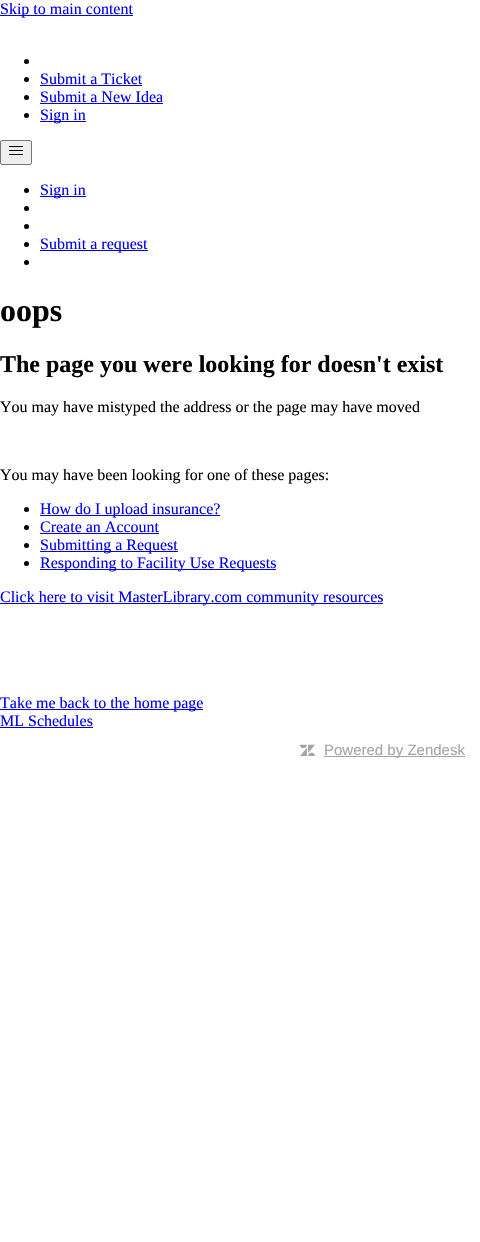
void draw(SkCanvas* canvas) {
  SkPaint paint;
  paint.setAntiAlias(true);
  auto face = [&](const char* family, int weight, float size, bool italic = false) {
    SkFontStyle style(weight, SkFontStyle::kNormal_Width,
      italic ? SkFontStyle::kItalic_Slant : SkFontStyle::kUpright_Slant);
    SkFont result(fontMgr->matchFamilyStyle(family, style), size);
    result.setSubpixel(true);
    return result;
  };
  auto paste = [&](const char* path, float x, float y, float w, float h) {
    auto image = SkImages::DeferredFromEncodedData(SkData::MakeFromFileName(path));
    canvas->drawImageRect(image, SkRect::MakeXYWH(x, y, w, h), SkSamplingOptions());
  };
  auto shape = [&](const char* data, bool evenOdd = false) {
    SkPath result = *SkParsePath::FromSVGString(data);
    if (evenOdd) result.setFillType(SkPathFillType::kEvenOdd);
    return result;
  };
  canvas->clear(0xffffffff);
  paint.setColor(0xff0000ee);
  canvas->drawRect(SkRect::MakeXYWH(0, 15, 133, 1), paint);
  paint.setColor(0xff000000);
  canvas->drawCircle(26.5f, 61.5f, 2.5f, paint);
  canvas->drawCircle(26.5f, 79.5f, 2.5f, paint);
  paint.setColor(0xff0000ee);
  canvas->drawRect(SkRect::MakeXYWH(40, 85, 102, 1), paint);
  paint.setColor(0xff000000);
  canvas->drawCircle(26.5f, 97.5f, 2.5f, paint);
  paint.setColor(0xff0000ee);
  canvas->drawRect(SkRect::MakeXYWH(40, 103, 123, 1), paint);
  paint.setColor(0xff000000);
  canvas->drawCircle(26.5f, 115.5f, 2.5f, paint);
  paint.setColor(0xff0000ee);
  canvas->drawRect(SkRect::MakeXYWH(40, 121, 46, 1), paint);
  paint.setColor(0xffefefef);
  canvas->drawRoundRect(SkRect::MakeXYWH(0.5f, 140.5f, 31, 24), 1.5f, 1.5f, paint);
  paint.setStroke(true);
  paint.setStrokeWidth(1);
  paint.setColor(0xff767676);
  canvas->drawRoundRect(SkRect::MakeXYWH(0.5f, 140.5f, 31, 24), 1.5f, 1.5f, paint);
  paint.setStrokeCap(SkPaint::kRound_Cap);
  paint.setColor(0xff000000);
  canvas->drawPath(shape("M9.5 146.5H22.5M9.5 150.5H22.5M9.5 154.5H22.5"), paint);
  paint.setStroke(false);
  canvas->drawCircle(26.5f, 190.5f, 2.5f, paint);
  paint.setColor(0xff0000ee);
  canvas->drawRect(SkRect::MakeXYWH(40, 196, 46, 1), paint);
  paint.setColor(0xff000000);
  canvas->drawCircle(26.5f, 208.5f, 2.5f, paint);
  canvas->drawCircle(26.5f, 226.5f, 2.5f, paint);
  canvas->drawCircle(26.5f, 244.5f, 2.5f, paint);
  paint.setColor(0xff0000ee);
  canvas->drawRect(SkRect::MakeXYWH(40, 250, 108, 1), paint);
  paint.setColor(0xff000000);
  canvas->drawCircle(26.5f, 262.5f, 2.5f, paint);
  canvas->drawCircle(26.5f, 509.5f, 2.5f, paint);
  paint.setColor(0xff0000ee);
  canvas->drawRect(SkRect::MakeXYWH(40, 515, 180, 1), paint);
  paint.setColor(0xff000000);
  canvas->drawCircle(26.5f, 527.5f, 2.5f, paint);
  paint.setColor(0xff0000ee);
  canvas->drawRect(SkRect::MakeXYWH(40, 533, 119, 1), paint);
  paint.setColor(0xff000000);
  canvas->drawCircle(26.5f, 545.5f, 2.5f, paint);
  paint.setColor(0xff0000ee);
  canvas->drawRect(SkRect::MakeXYWH(40, 551, 138, 1), paint);
  paint.setColor(0xff000000);
  canvas->drawCircle(26.5f, 563.5f, 2.5f, paint);
  {
    const struct { float x, y, w, h; SkColor color; } items[] = {
      {40, 569, 236, 1, 0xff0000ee},
      {0, 603, 383, 1, 0xff0000ee},
      {0, 709, 203, 1, 0xff0000ee},
      {0, 727, 93, 1, 0xff0000ee},
    };
    for (auto [x, y, w, h, color] : items) {
      paint.setColor(color);
      canvas->drawRect(SkRect::MakeXYWH(x, y, w, h), paint);
    }
  }
  paste("img/1.png", 300, 744, 15, 13);
  paint.setColor(0xffa5a5a5);
  canvas->drawRect(SkRect::MakeXYWH(324, 756, 141, 1), paint);
  auto f0 = face("Liberation Serif", 400, 16);
  paint.setColor(0xff0000ee);
  {
    const struct { const char* s; float x, y; } items[] = {
      {"Skip to main content", 0, 14},
      {"Submit a Ticket", 40, 84},
      {"Submit a New Idea", 40, 102},
      {"Sign in", 40, 120},
      {"Sign in", 40, 195},
      {"Submit a request", 40, 249},
    };
    for (auto [s, x, y] : items) {
      canvas->drawString(s, x, y, f0, paint);
    }
  }
  auto f1 = face("Liberation Serif", 700, 32);
  paint.setColor(0xff000000);
  canvas->drawString("oops", 0, 321, f1, paint);
  auto f2 = face("Liberation Serif", 700, 24);
  canvas->drawString("The page you were looking for doesn't exist", 0, 372, f2, paint);
  canvas->drawString("You may have mistyped the address or the page may have moved", 0, 412, f0, paint);
  canvas->drawString("You may have been looking for one of these pages:", 0, 480, f0, paint);
  paint.setColor(0xff0000ee);
  {
    const struct { const char* s; float x, y; } items[] = {
      {"How do I upload insurance?", 40, 514},
      {"Create an Account", 40, 532},
      {"Submitting a Request", 40, 550},
      {"Responding to Facility Use Requests", 40, 568},
      {"Click here to visit MasterLibrary.com community resources", 0, 602},
      {"Take me back to the home page", 0, 708},
      {"ML Schedules", 0, 726},
    };
    for (auto [s, x, y] : items) {
      canvas->drawString(s, x, y, f0, paint);
    }
  }
  auto f3 = face("Liberation Sans", 400, 15);
  paint.setColor(0xffa5a5a5);
  canvas->drawString("Powered by Zendesk", 324, 755, f3, paint);
}
